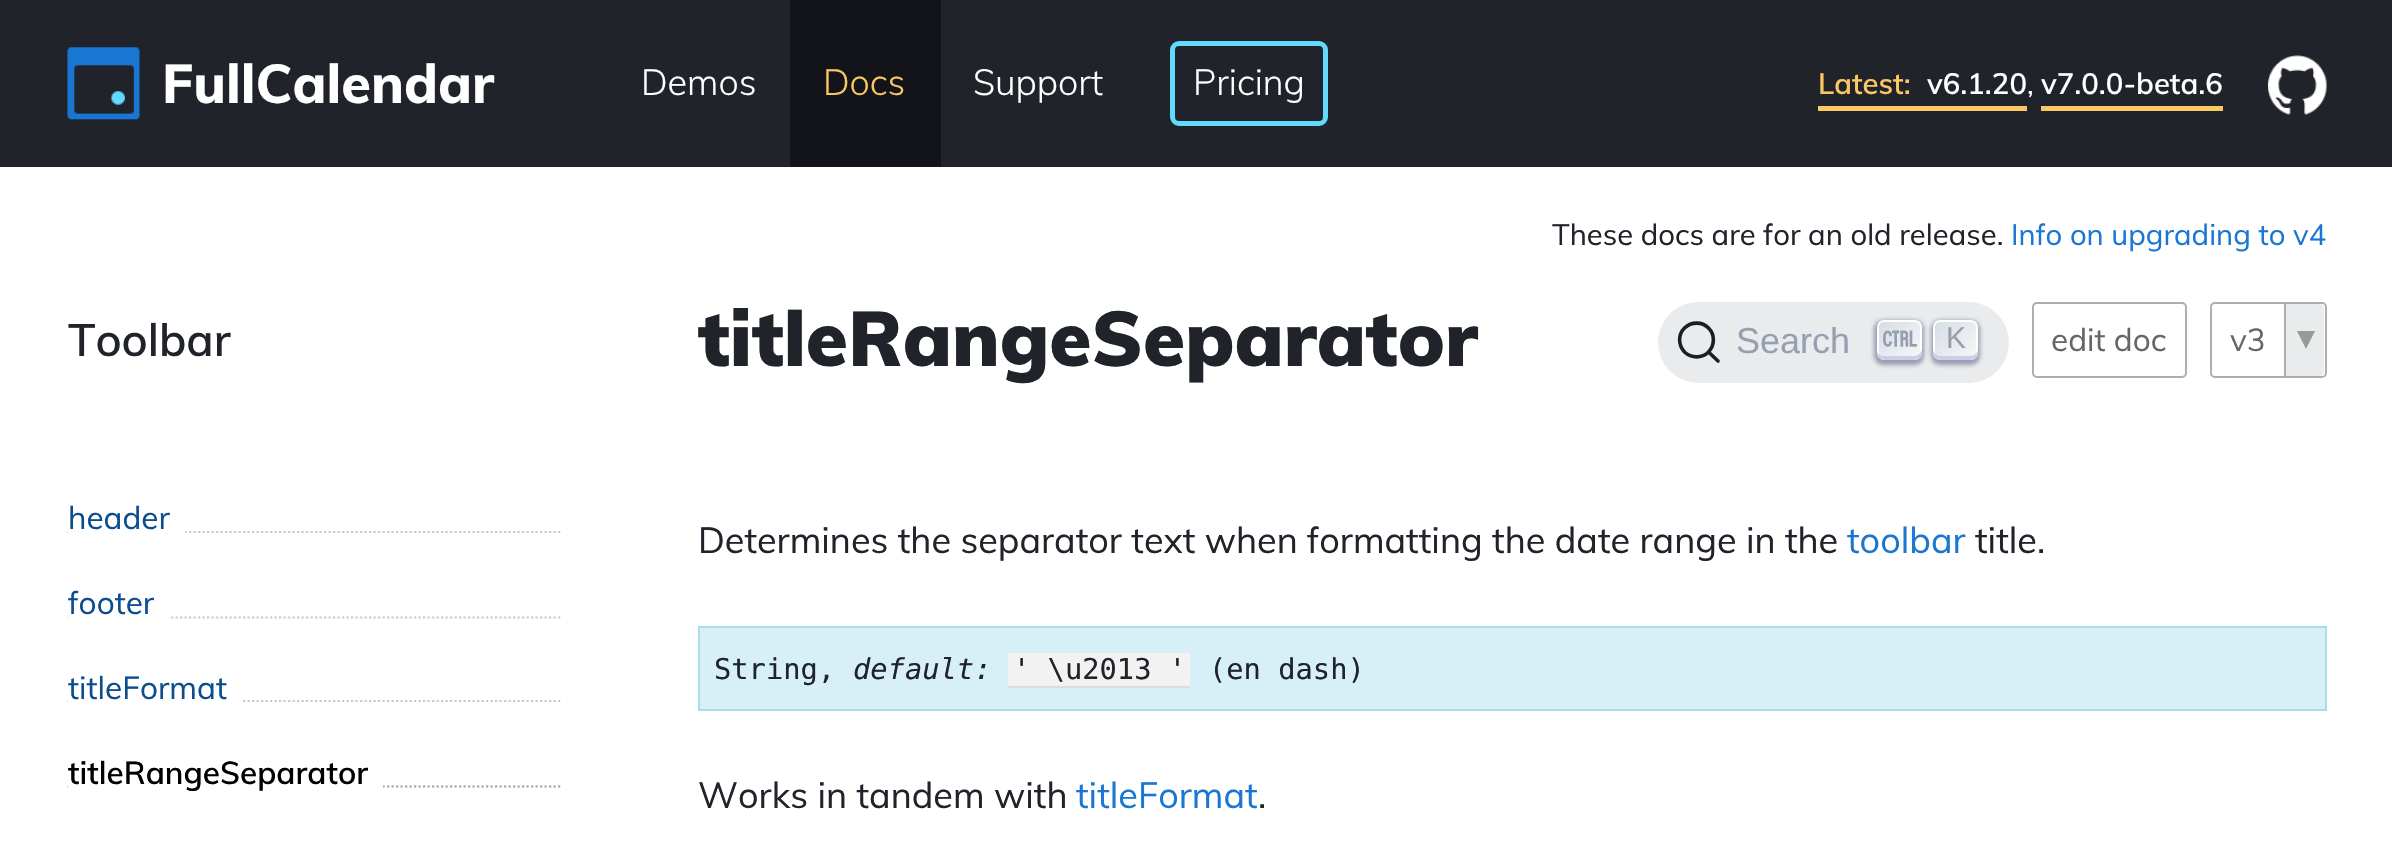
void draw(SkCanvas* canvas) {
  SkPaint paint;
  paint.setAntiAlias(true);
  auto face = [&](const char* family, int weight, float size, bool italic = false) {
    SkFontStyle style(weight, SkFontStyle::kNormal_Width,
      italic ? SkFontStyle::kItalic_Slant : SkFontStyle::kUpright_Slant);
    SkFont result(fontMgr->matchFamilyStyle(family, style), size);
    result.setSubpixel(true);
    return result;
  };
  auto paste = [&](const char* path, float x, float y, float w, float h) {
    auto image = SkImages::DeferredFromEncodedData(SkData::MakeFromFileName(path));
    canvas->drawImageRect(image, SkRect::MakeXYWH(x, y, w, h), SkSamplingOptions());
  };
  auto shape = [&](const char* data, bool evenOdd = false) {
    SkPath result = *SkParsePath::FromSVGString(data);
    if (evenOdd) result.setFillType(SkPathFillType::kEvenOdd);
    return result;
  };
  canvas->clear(0xffffffff);
  paint.setColor(0xff20232a);
  canvas->drawRect(SkRect::MakeXYWH(0, 0, 2392, 167), paint);
  paste("img/1.png", 67, 47, 73, 73);
  paint.setColor(0xff121419);
  canvas->drawRect(SkRect::MakeXYWH(790, 0, 151, 167), paint);
  paint.setStroke(true);
  paint.setStrokeWidth(5);
  paint.setColor(0xff61dafb);
  canvas->drawRoundRect(SkRect::MakeXYWH(1172.5f, 43.5f, 153, 80), 6.5f, 6.5f, paint);
  paint.setStroke(false);
  paint.setColor(0xfffac863);
  canvas->drawRect(SkRect::MakeXYWH(1818, 106, 209, 5), paint);
  canvas->drawRect(SkRect::MakeXYWH(2041, 106, 182, 5), paint);
  paste("img/2.png", 2268, 55, 59, 60);
  paint.setStroke(true);
  paint.setStrokeWidth(2.2f);
  paint.setColor(0xffc8c9cc);
  paint.setPathEffect(SkDashPathEffect::Make({{2.25f, 2.25f}}, 0));
  canvas->drawPath(shape("M67.5 532H562.5"), paint);
  paint.setPathEffect(nullptr);
  paint.setStroke(false);
  paint.setColor(0xffffffff);
  canvas->drawRect(SkRect::MakeXYWH(68, 530, 117, 4), paint);
  paint.setStroke(true);
  paint.setColor(0xffc8c9cc);
  paint.setPathEffect(SkDashPathEffect::Make({{2.25f, 2.25f}}, 0));
  canvas->drawPath(shape("M67.5 617.5H562.5"), paint);
  paint.setPathEffect(nullptr);
  paint.setStroke(false);
  paint.setColor(0xffffffff);
  canvas->drawRect(SkRect::MakeXYWH(68, 616, 101, 3), paint);
  paint.setStroke(true);
  paint.setColor(0xffc8c9cc);
  paint.setPathEffect(SkDashPathEffect::Make({{2.25f, 2.25f}}, 0));
  canvas->drawPath(shape("M67.5 701H562.5"), paint);
  paint.setPathEffect(nullptr);
  paint.setStroke(false);
  paint.setColor(0xffffffff);
  canvas->drawRect(SkRect::MakeXYWH(68, 699, 173, 4), paint);
  paint.setStroke(true);
  paint.setColor(0xffa0a0a0);
  paint.setPathEffect(SkDashPathEffect::Make({{2.25f, 2.25f}}, 0));
  canvas->drawPath(shape("M67.5 786.5H562.5"), paint);
  paint.setPathEffect(nullptr);
  paint.setStroke(false);
  paint.setColor(0xffffffff);
  canvas->drawRect(SkRect::MakeXYWH(68, 785, 315, 3), paint);
  paint.setColor(0xffeaebec);
  canvas->drawRoundRect(SkRect::MakeXYWH(1658, 302, 351, 81), 40.5f, 40.5f, paint);
  paint.setStroke(true);
  paint.setStrokeWidth(3.6f);
  paint.setStrokeCap(SkPaint::kRound_Cap);
  paint.setStrokeJoin(SkPaint::kRound_Join);
  paint.setColor(0xff1c1e21);
  canvas->drawPath(shape("M1708.5 352L1718 361L1708.5 352C1702 358.5 1691.5 358.5 1684.5 352C1678 345 1678 334.5 1684.5 328C1691.5 321.5 1702 321.5 1708.5 328C1715 334.5 1715 345 1708.5 352Z"), paint);
  paint.setStroke(false);
  paint.setColor(0x661e235a);
  paint.setMaskFilter(SkMaskFilter::MakeBlur(kNormal_SkBlurStyle, 2));
  canvas->drawRoundRect(SkRect::MakeXYWH(1874, 320, 50, 45), 9, 9, paint);
  paint.setMaskFilter(nullptr);
  {
    const SkColor colors[] = {0xffd5dbe4, 0xfff8f8f8};
    const float stops[] = {0, 1};
    const SkPoint ends[] = {{1878, 318}, {1920, 361}};
    paint.setShader(SkGradientShader::MakeLinear(ends, colors, stops, 2, SkTileMode::kClamp));
    paint.setAlpha(255);
  }
  canvas->drawRoundRect(SkRect::MakeXYWH(1878, 321, 43, 38), 6, 6, paint);
  paint.setStroke(true);
  paint.setStrokeWidth(2);
  paint.setStrokeCap(SkPaint::kButt_Cap);
  paint.setStrokeJoin(SkPaint::kMiter_Join);
  paint.setShader(nullptr);
  paint.setColor(0xffffffff);
  canvas->drawRoundRect(SkRect::MakeXYWH(1878, 321, 43, 38), 6, 6, paint);
  paint.setStroke(false);
  paint.setColor(0xffcdcde6);
  canvas->drawPath(shape("M1877 352C1877 360 1883 360 1889 360H1910C1920 360 1922 359 1922 349C1922 352 1918 356 1915 356H1883C1881 356 1878 354 1877 352Z"), paint);
  paste("img/3.png", 1883, 330, 34, 17);
  paint.setColor(0x661e235a);
  paint.setMaskFilter(SkMaskFilter::MakeBlur(kNormal_SkBlurStyle, 2));
  canvas->drawRoundRect(SkRect::MakeXYWH(1931, 320, 49, 45), 9, 9, paint);
  paint.setMaskFilter(nullptr);
  {
    const SkColor colors[] = {0xffd5dbe4, 0xfff8f8f8};
    const float stops[] = {0, 1};
    const SkPoint ends[] = {{1934, 318}, {1977, 361}};
    paint.setShader(SkGradientShader::MakeLinear(ends, colors, stops, 2, SkTileMode::kClamp));
    paint.setAlpha(255);
  }
  canvas->drawRoundRect(SkRect::MakeXYWH(1934, 321, 43, 38), 6, 6, paint);
  paint.setStroke(true);
  paint.setShader(nullptr);
  paint.setColor(0xffffffff);
  canvas->drawRoundRect(SkRect::MakeXYWH(1934, 321, 43, 38), 6, 6, paint);
  paint.setStroke(false);
  paint.setColor(0xffcdcde6);
  canvas->drawPath(shape("M1933 349C1933 359 1935 360 1945 360H1966C1976 360 1978 359 1978 349C1978 352 1975 356 1971 356H1940C1936 356 1933 352 1933 349Z"), paint);
  paint.setStroke(true);
  paint.setColor(0xffadaeaf);
  canvas->drawRoundRect(SkRect::MakeXYWH(2033, 303, 153, 74), 4, 4, paint);
  canvas->drawRoundRect(SkRect::MakeXYWH(2211, 303, 115, 74), 4, 4, paint);
  paint.setStroke(false);
  paint.setColor(0xffeaebec);
  canvas->drawPath(shape("M2284 304H2319C2322 304 2324 306 2324 309V371C2324 374 2322 376 2319 376H2284Z"), paint);
  paint.setColor(0xffadaeaf);
  canvas->drawRect(SkRect::MakeXYWH(2284, 304, 2, 72), paint);
  paint.setColor(0xff989999);
  canvas->drawPath(shape("M2297 331H2315L2306 349Z"), paint);
  paint.setColor(0xffd7f0f7);
  canvas->drawRect(SkRect::MakeXYWH(699, 627, 1627, 83), paint);
  paint.setStroke(true);
  paint.setColor(0xffa9dded);
  canvas->drawRect(SkRect::MakeXYWH(699, 627, 1627, 83), paint);
  paint.setStroke(false);
  paint.setColor(0xfff2f2f2);
  canvas->drawRect(SkRect::MakeXYWH(1008, 653, 182, 33), paint);
  paint.setColor(0xffdddddd);
  canvas->drawRect(SkRect::MakeXYWH(1008, 686, 182, 2), paint);
  auto f0 = face("Muli", 800, 54);
  paint.setColor(0xffffffff);
  canvas->drawString("FullCalendar", 162, 103, f0, paint);
  auto f1 = face("Muli", 300, 36);
  canvas->drawString("Demos", 641, 95, f1, paint);
  paint.setColor(0xfffac863);
  canvas->drawString("Docs", 823, 95, f1, paint);
  paint.setColor(0xffffffff);
  canvas->drawString("Support", 973, 95, f1, paint);
  canvas->drawString("Pricing", 1193, 95, f1, paint);
  auto f2 = face("Muli", 600, 29.25f);
  paint.setColor(0xfffac863);
  canvas->drawString("Latest:", 1818, 94, f2, paint);
  paint.setColor(0xffffffff);
  canvas->drawString("v6.1.20", 1927, 94, f2, paint);
  auto f3 = face("Muli", 400, 29.25f);
  canvas->drawString(",", 2027, 94, f3, paint);
  canvas->drawString("v7.0.0-beta.6", 2041, 94, f2, paint);
  auto f4 = face("Muli", 600, 45);
  paint.setColor(0xff20232a);
  canvas->drawString("Toolbar", 68, 356, f4, paint);
  auto f5 = face("Muli", 400, 31.5f);
  paint.setColor(0xff0b4d8e);
  {
    const struct { const char* s; float x, y; } items[] = {
      {"header", 68, 529},
      {"footer", 68, 614},
      {"titleFormat", 68, 699},
    };
    for (auto [s, x, y] : items) {
      canvas->drawString(s, x, y, f5, paint);
    }
  }
  auto f6 = face("Muli", 600, 31.5f);
  paint.setColor(0xff000000);
  canvas->drawString("titleRangeSeparator", 68, 784, f6, paint);
  auto f7 = face("Muli", 900, 76.5f);
  paint.setColor(0xff20232a);
  canvas->drawString("titleRangeSeparator", 698, 366, f7, paint);
  canvas->drawString("These docs are for an old release.", 1552, 245, f3, paint);
  paint.setColor(0xff1976d2);
  canvas->drawString("Info on upgrading to v4", 2011, 245, f3, paint);
  auto f8 = face("Liberation Sans", 400, 36);
  paint.setColor(0xff969faf);
  canvas->drawString("Search", 1736, 353, f8, paint);
  auto f9 = face("Liberation Sans", 400, 30);
  canvas->drawString("K", 1946, 348, f9, paint);
  paint.setColor(0xff656667);
  canvas->drawString("edit doc", 2051, 351, f5, paint);
  canvas->drawString("v3", 2230, 351, f5, paint);
  auto f10 = face("Muli", 400, 36);
  paint.setColor(0xff20232a);
  canvas->drawString("Determines the separator text when formatting the date range in the", 698, 553, f10, paint);
  paint.setColor(0xff1976d2);
  canvas->drawString("toolbar", 1847, 553, f10, paint);
  paint.setColor(0xff20232a);
  canvas->drawString("title.", 1975, 553, f10, paint);
  auto f11 = face("DejaVu Sans Mono", 400, 28.75f);
  canvas->drawString("String,", 714, 679, f11, paint);
  auto f12 = face("DejaVu Sans Mono", 400, 28.75f, true);
  canvas->drawString("default:", 853, 679, f12, paint);
  canvas->drawString("' \\u2013 '", 1013, 679, f11, paint);
  canvas->drawString("(en dash)", 1209, 679, f11, paint);
  canvas->drawString("Works in tandem with", 698, 808, f10, paint);
  paint.setColor(0xff1976d2);
  canvas->drawString("titleFormat", 1076, 808, f10, paint);
  paint.setColor(0xff20232a);
  canvas->drawString(".", 1258, 808, f10, paint);
}
